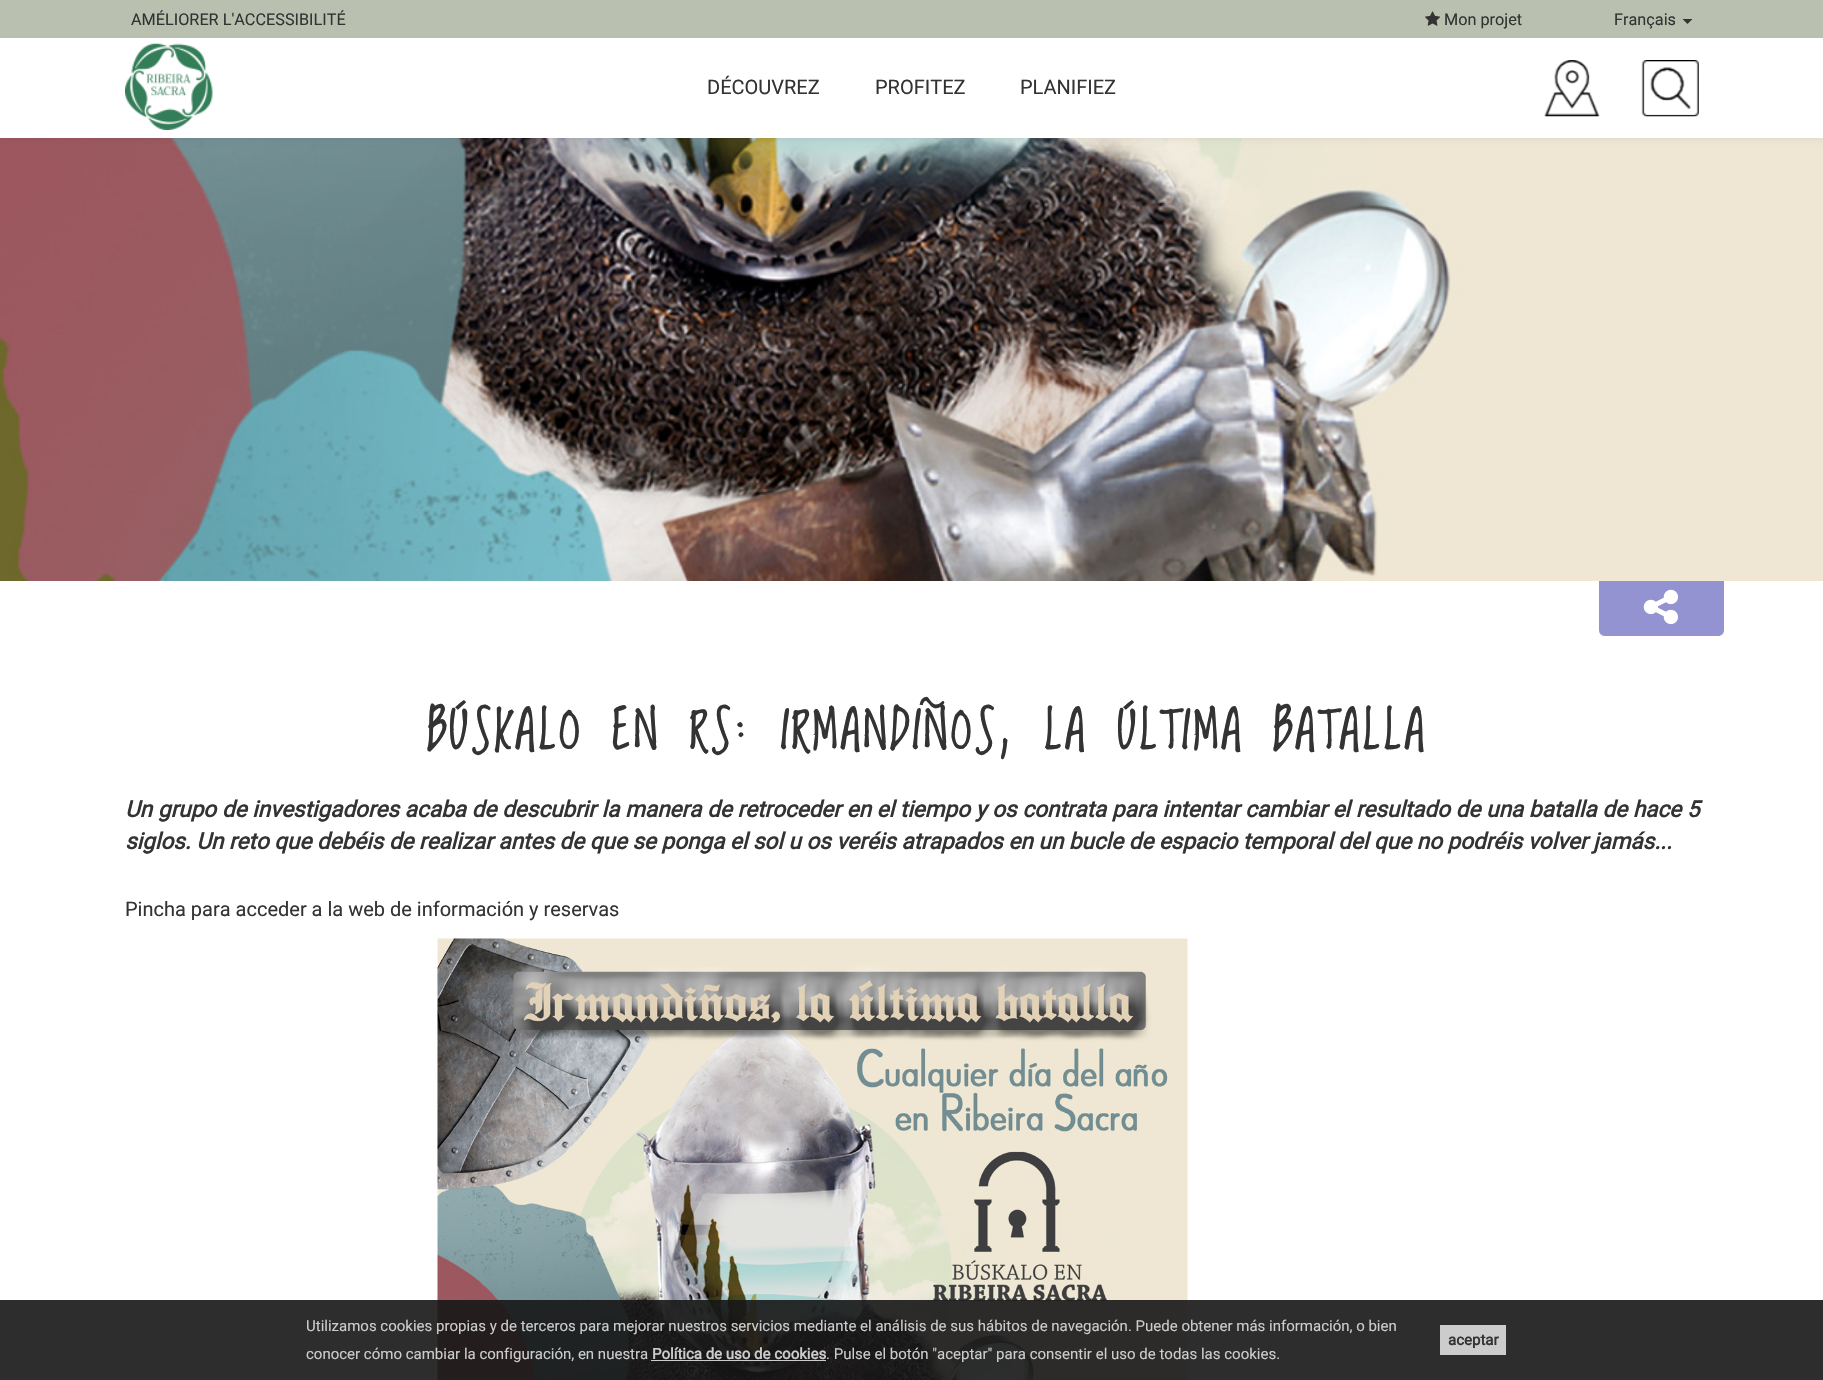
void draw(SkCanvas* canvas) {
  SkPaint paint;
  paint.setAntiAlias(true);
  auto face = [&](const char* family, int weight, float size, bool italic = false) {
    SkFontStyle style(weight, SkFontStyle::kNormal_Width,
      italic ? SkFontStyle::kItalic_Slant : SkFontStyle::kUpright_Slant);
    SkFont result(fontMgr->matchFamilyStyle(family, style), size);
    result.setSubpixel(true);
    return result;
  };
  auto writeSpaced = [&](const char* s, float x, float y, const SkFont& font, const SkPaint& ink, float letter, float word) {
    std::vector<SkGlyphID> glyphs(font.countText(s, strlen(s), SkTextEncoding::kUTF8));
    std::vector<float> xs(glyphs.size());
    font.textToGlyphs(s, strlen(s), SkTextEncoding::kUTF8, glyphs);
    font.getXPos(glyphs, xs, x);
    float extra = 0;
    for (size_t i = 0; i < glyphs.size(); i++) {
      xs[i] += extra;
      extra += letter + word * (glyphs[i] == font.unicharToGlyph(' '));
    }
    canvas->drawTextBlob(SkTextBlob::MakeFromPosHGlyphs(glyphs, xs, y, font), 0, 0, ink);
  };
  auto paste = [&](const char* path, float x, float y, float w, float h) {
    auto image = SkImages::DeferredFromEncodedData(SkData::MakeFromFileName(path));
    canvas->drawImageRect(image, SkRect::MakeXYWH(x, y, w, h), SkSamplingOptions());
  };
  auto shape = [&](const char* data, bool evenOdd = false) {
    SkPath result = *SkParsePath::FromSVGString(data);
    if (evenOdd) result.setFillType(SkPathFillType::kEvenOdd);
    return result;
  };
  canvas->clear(0xffffffff);
  paste("img/5.png", 0, 138, 1823, 443);
  paint.setColor(0x12000000);
  paint.setMaskFilter(SkMaskFilter::MakeBlur(kNormal_SkBlurStyle, 3));
  canvas->drawRect(SkRect::MakeXYWH(0, 1, 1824, 138), paint);
  paint.setMaskFilter(nullptr);
  paint.setColor(0xffffffff);
  canvas->drawRect(SkRect::MakeXYWH(0, 38, 1823, 100), paint);
  paint.setColor(0xffbac0af);
  canvas->drawRect(SkRect::MakeXYWH(0, 0, 1823, 38), paint);
  paste("img/1.png", 1425, 11, 15, 15);
  paint.setColor(0xff333333);
  canvas->drawPath(shape("M1682.5 19H1692.5L1687.5 24Z"), paint);
  paste("img/2.png", 125, 43, 88, 87);
  paste("img/3.png", 1544, 60, 56, 57);
  paste("img/4.png", 1641, 60, 58, 57);
  paint.setColor(0xff9393d1);
  canvas->drawPath(shape("M1599 581H1724V630C1724 633.5 1721.5 636 1718 636H1605C1601.5 636 1599 633.5 1599 630Z"), paint);
  paste("img/6.png", 1643, 589, 35, 36);
  paste("img/7.png", 437, 938, 751, 442);
  {
    const struct { float x, y, w, h; SkColor color; } items[] = {
      {0, 1300, 1823, 80, 0xe6161616},
      {1440, 1325, 66, 30, 0xffcccccc},
      {651, 1360, 175, 1, 0xffcccccc},
    };
    for (auto [x, y, w, h, color] : items) {
      paint.setColor(color);
      canvas->drawRect(SkRect::MakeXYWH(x, y, w, h), paint);
    }
  }
  auto f0 = face("Roboto", 400, 16.25f);
  paint.setColor(0xff333333);
  {
    const struct { const char* s; float x, y; } items[] = {
      {"AMÉLIORER L'ACCESSIBILITÉ", 131, 25},
      {"Mon projet", 1444, 25},
      {"Français", 1614, 25},
    };
    for (auto [s, x, y] : items) {
      canvas->drawString(s, x, y, f0, paint);
    }
  }
  auto f1 = face("Roboto", 400, 20);
  {
    const struct { const char* s; float x, y; } items[] = {
      {"DÉCOUVREZ", 707, 94},
      {"PROFITEZ", 875, 94},
      {"PLANIFIEZ", 1020, 94},
    };
    for (auto [s, x, y] : items) {
      canvas->drawString(s, x, y, f1, paint);
    }
  }
  auto f2 = face("Loved by the King", 700, 50);
  writeSpaced("BÚSKALO EN RS: IRMANDIÑOS, LA ÚLTIMA BATALLA", 427, 749, f2, paint, 3.75f, 0);
  auto f3 = face("Roboto", 700, 22.5f, true);
  writeSpaced("Un grupo de investigadores acaba de descubrir la manera de retroceder en el tiempo y os contrata para intentar cambiar el resultado de una batalla de hace 5", 125, 817, f3, paint, 0, 0.2f);
  canvas->drawString("siglos. Un reto que debéis de realizar antes de que se ponga el sol u os veréis atrapados en un bucle de espacio temporal del que no podréis volver jamás...", 125, 849, f3, paint);
  canvas->drawString("Pincha para acceder a la web de información y reservas", 125, 916, f1, paint);
  auto f4 = face("Roboto", 400, 15);
  paint.setColor(0xffcccccc);
  canvas->drawString("Utilizamos cookies propias y de terceros para mejorar nuestros servicios mediante el análisis de sus hábitos de navegación. Puede obtener más información, o bien", 306, 1331, f4, paint);
  auto f5 = face("Roboto", 700, 15);
  paint.setColor(0xff333333);
  canvas->drawString("aceptar", 1448, 1345, f5, paint);
  paint.setColor(0xffcccccc);
  canvas->drawString("conocer cómo cambiar la configuración, en nuestra", 306, 1359, f4, paint);
  canvas->drawString("Política de uso de cookies", 652, 1359, f5, paint);
  canvas->drawString(". Pulse el botón \"aceptar\" para consentir el uso de todas las cookies.", 826, 1359, f4, paint);
}
